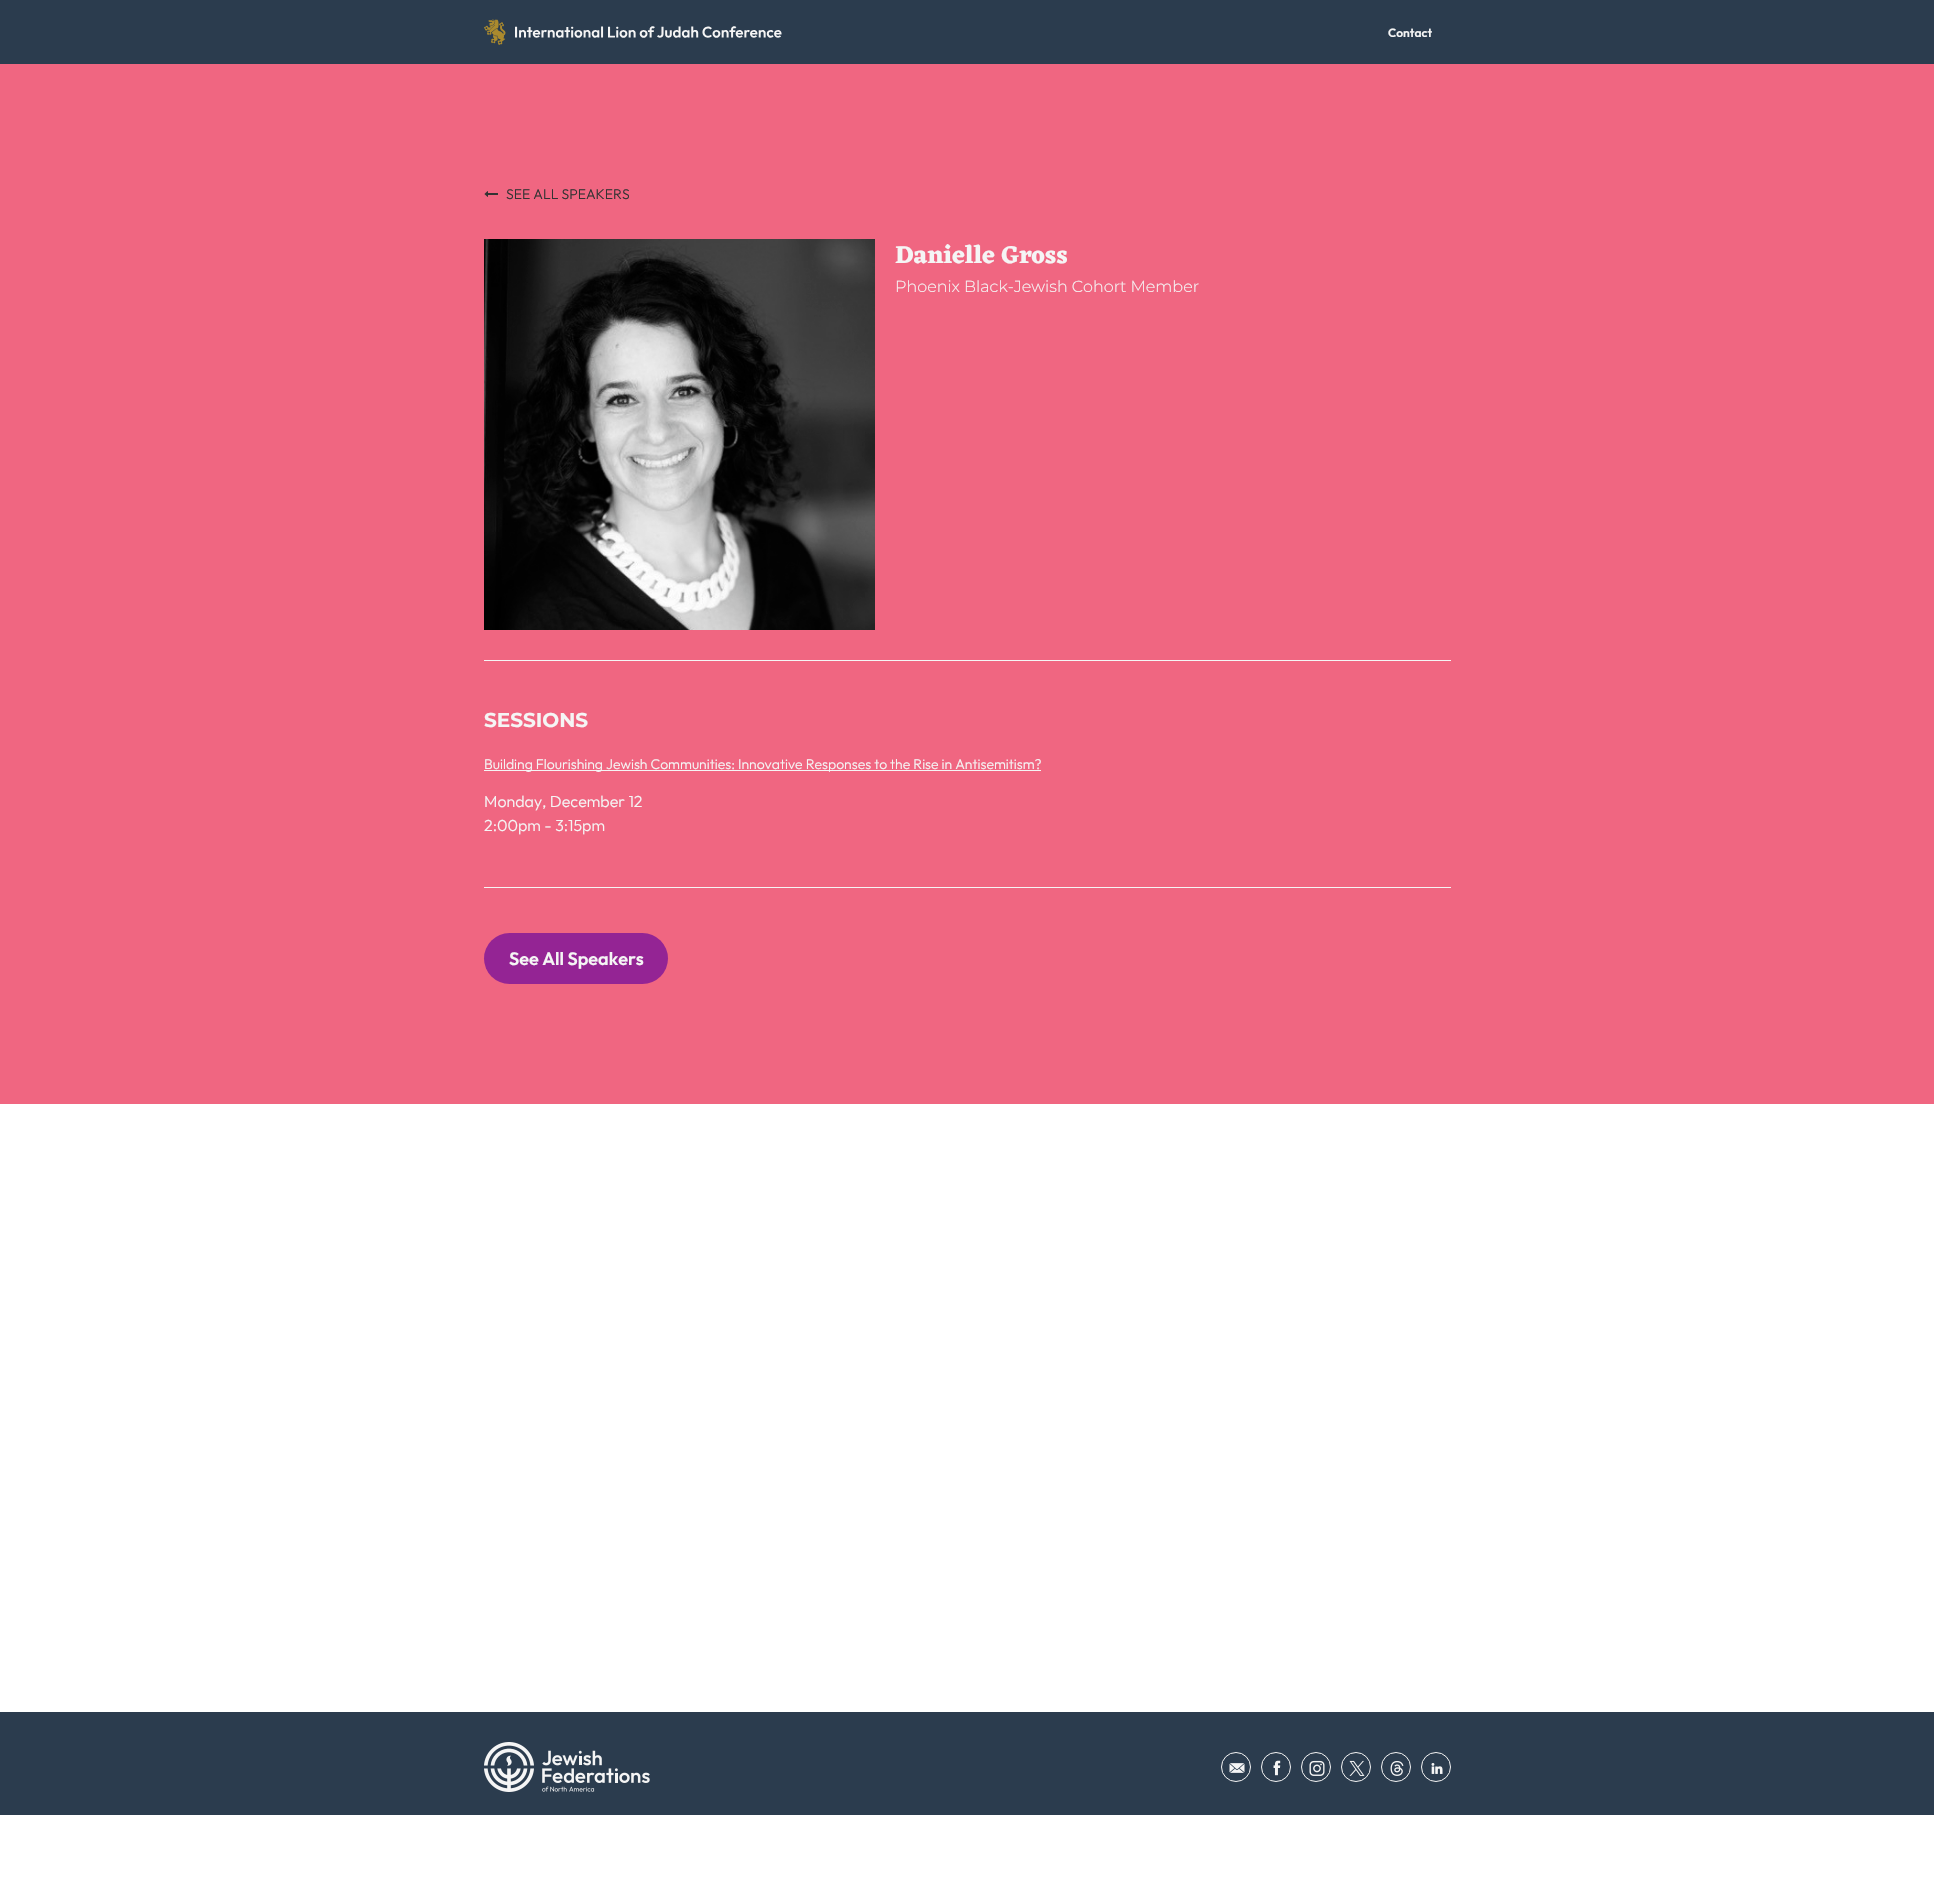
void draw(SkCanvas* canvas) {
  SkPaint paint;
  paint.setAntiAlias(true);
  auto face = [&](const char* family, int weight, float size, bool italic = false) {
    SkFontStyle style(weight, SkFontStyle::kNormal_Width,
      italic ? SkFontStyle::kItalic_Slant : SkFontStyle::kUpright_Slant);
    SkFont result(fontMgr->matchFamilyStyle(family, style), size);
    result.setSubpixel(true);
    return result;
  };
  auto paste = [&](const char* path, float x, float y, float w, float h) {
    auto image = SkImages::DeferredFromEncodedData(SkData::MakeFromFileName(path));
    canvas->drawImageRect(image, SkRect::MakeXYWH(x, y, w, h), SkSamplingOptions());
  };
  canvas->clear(0xffffffff);
  paint.setColor(0xff2b3c4e);
  canvas->drawRect(SkRect::MakeXYWH(0, 0, 1934, 64), paint);
  paste("img/1.png", 484, 19, 298, 26);
  paint.setColor(0xfff06681);
  canvas->drawRect(SkRect::MakeXYWH(0, 64, 1934, 1040), paint);
  paste("img/2.png", 484, 191, 14, 6);
  paint.setColor(0xfff5f5f5);
  canvas->drawRect(SkRect::MakeXYWH(484, 660, 967, 1), paint);
  paste("img/3.png", 484, 239, 391, 391);
  canvas->drawRect(SkRect::MakeXYWH(484, 887, 967, 1), paint);
  canvas->drawRect(SkRect::MakeXYWH(484, 770, 557, 1), paint);
  paint.setColor(0xff942494);
  canvas->drawRoundRect(SkRect::MakeXYWH(484, 933, 184, 51), 25.5f, 25.5f, paint);
  paint.setColor(0xff2b3c4e);
  canvas->drawRect(SkRect::MakeXYWH(0, 1712, 1934, 103), paint);
  paste("img/4.png", 484, 1742, 166, 50);
  paint.setStroke(true);
  paint.setStrokeWidth(1);
  paint.setColor(0xfff5f5f5);
  canvas->drawCircle(1236, 1767, 14.5f, paint);
  canvas->drawCircle(1276, 1767, 14.5f, paint);
  canvas->drawCircle(1316, 1767, 14.5f, paint);
  canvas->drawCircle(1356, 1767, 14.5f, paint);
  canvas->drawCircle(1396, 1767, 14.5f, paint);
  canvas->drawCircle(1436, 1767, 14.5f, paint);
  paste("img/5.png", 1229, 1763, 16, 10);
  paste("img/6.png", 1273, 1760, 8, 16);
  paste("img/7.png", 1309, 1760, 16, 16);
  paste("img/8.png", 1349, 1760, 16, 16);
  paste("img/9.png", 1390, 1761, 14, 15);
  paste("img/10.png", 1431, 1763, 12, 11);
  auto f0 = face("Outfit", 600, 12);
  paint.setStroke(false);
  canvas->drawString("Contact", 1388, 37, f0, paint);
  auto f1 = face("Outfit", 300, 14);
  paint.setColor(0xff333333);
  canvas->drawString("SEE ALL SPEAKERS", 506, 199, f1, paint);
  auto f2 = face("Eczar", 700, 25);
  paint.setColor(0xfff5f5f5);
  canvas->drawString("Danielle Gross", 895, 263, f2, paint);
  auto f3 = face("Montserrat", 300, 16);
  canvas->drawString("Phoenix Black-Jewish Cohort Member", 895, 292, f3, paint);
  auto f4 = face("Montserrat", 700, 20);
  canvas->drawString("SESSIONS", 484, 727, f4, paint);
  canvas->drawString("Building Flourishing Jewish Communities: Innovative Responses to the Rise in Antisemitism?", 484, 769, f1, paint);
  auto f5 = face("Outfit", 300, 16);
  canvas->drawString("Monday, December 12", 484, 807, f5, paint);
  canvas->drawString("2:00pm - 3:15pm", 484, 831, f5, paint);
  auto f6 = face("Outfit", 600, 18);
  canvas->drawString("See All Speakers", 509, 965, f6, paint);
}
